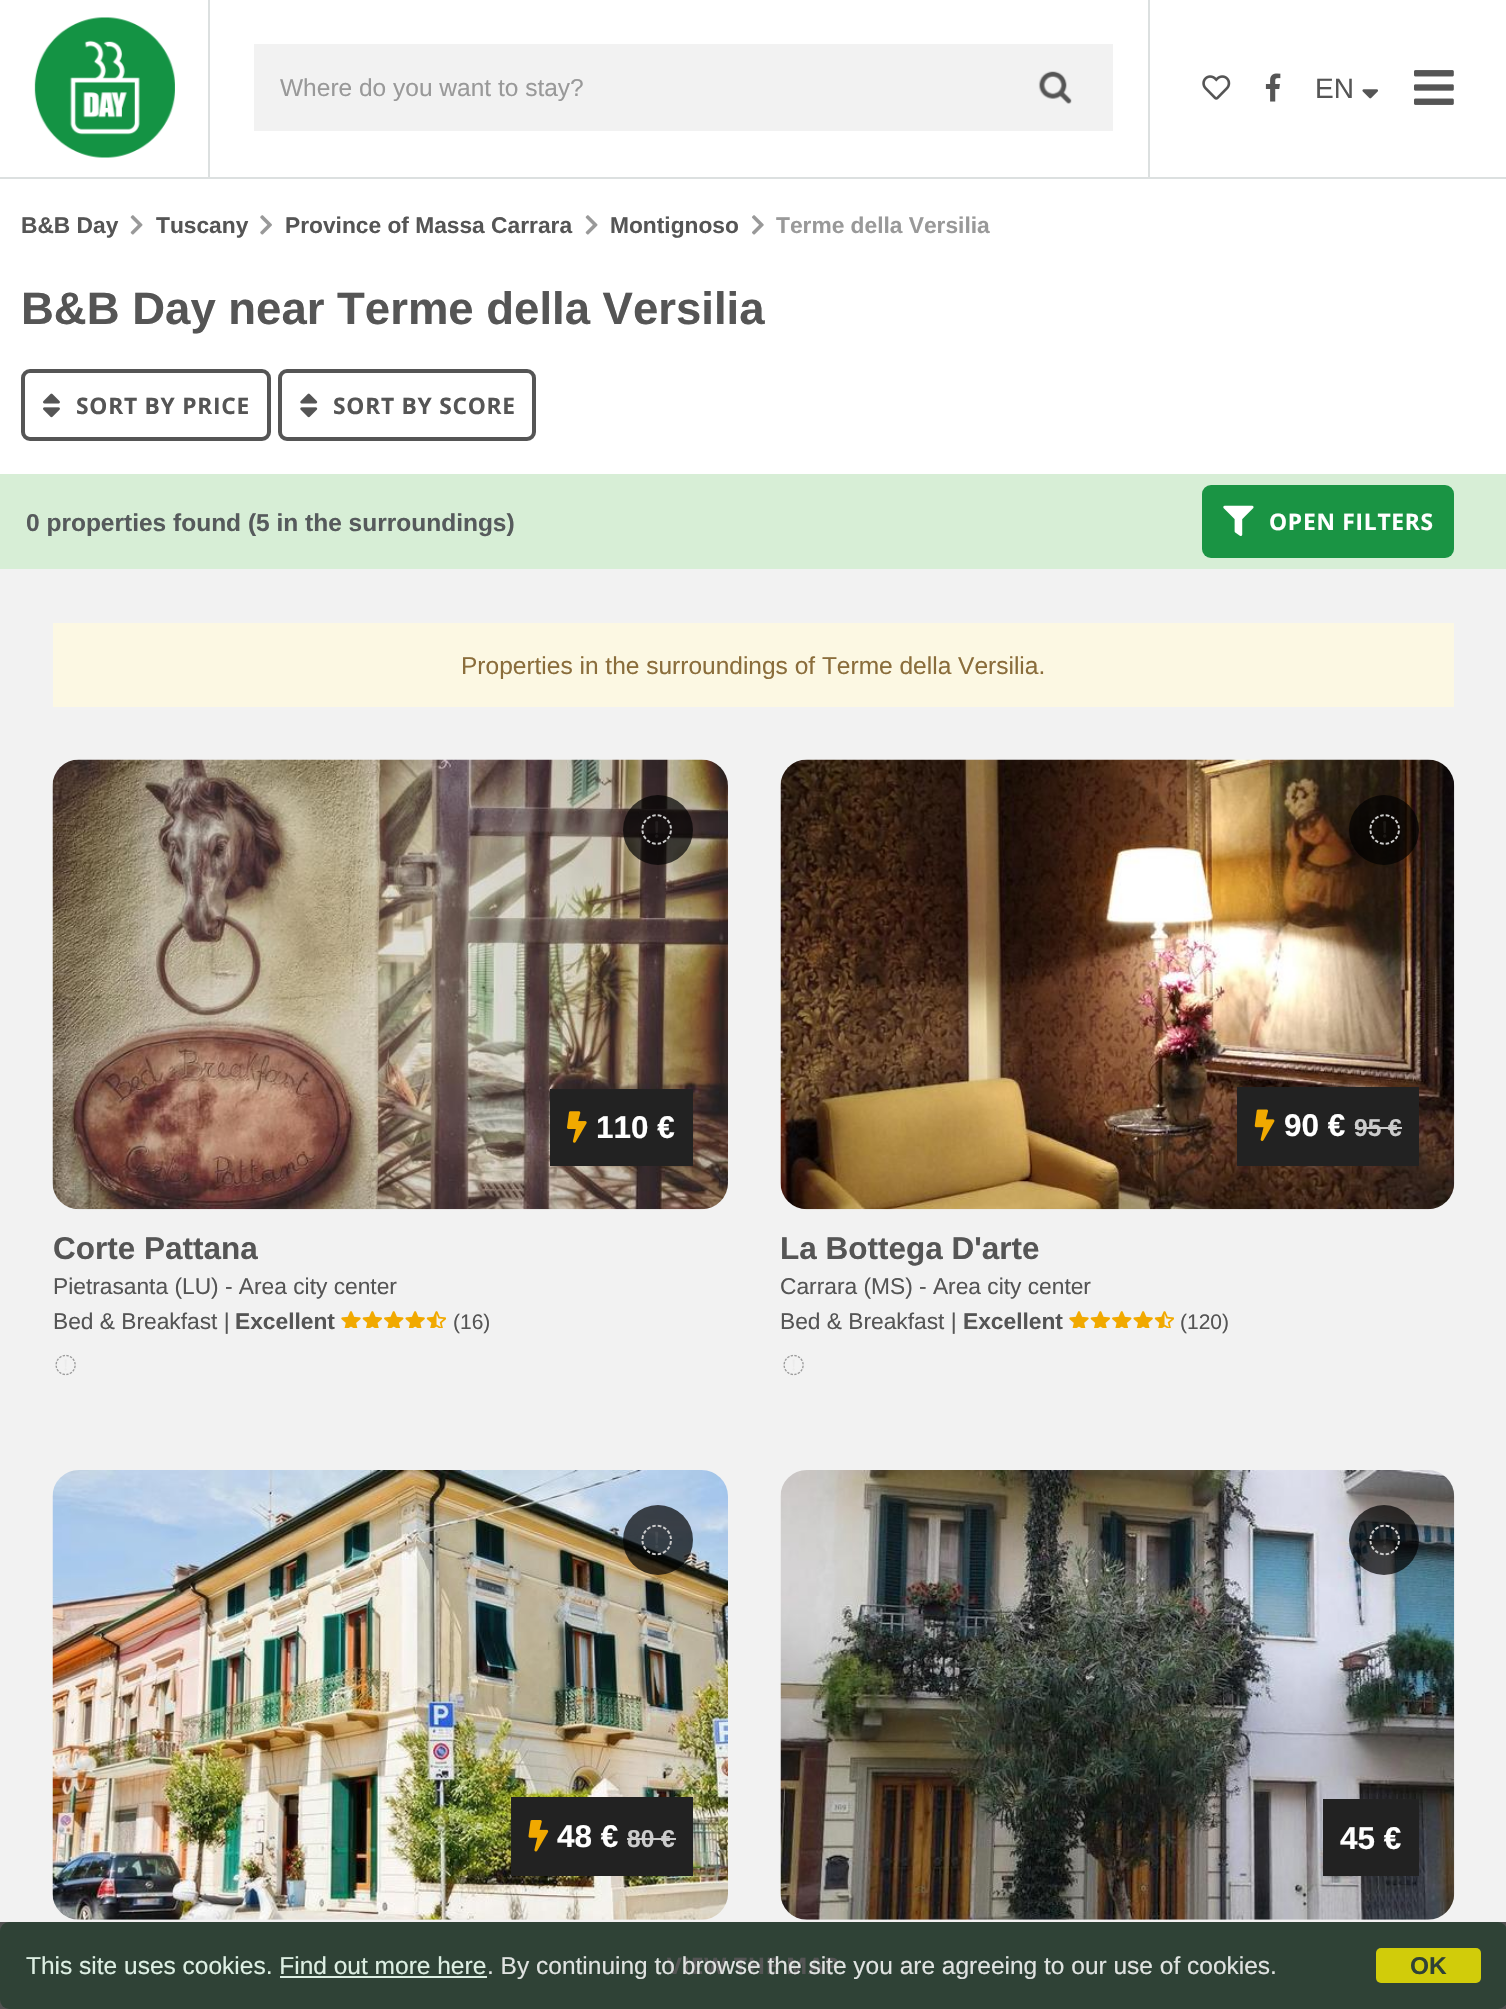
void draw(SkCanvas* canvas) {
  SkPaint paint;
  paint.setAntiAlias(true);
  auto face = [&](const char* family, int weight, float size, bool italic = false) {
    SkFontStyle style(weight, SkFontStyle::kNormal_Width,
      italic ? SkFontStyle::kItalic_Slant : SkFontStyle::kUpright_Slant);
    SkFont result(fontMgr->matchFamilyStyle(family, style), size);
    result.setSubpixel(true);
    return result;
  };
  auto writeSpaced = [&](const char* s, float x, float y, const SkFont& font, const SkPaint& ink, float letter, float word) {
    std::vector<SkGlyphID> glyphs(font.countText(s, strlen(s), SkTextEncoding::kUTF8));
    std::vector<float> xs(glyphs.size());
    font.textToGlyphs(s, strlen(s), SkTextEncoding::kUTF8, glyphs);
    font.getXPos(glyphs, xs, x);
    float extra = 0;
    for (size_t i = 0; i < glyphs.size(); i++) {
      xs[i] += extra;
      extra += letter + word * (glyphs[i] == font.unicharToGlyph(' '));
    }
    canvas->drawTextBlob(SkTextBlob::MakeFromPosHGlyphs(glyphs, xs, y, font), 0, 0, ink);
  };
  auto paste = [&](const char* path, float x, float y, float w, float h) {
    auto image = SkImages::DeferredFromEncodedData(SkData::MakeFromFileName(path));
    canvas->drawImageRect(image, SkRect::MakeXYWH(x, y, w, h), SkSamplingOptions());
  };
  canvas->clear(0xffffffff);
  paint.setColor(0xffdce0e0);
  canvas->drawRect(SkRect::MakeXYWH(0, 177, 1506, 2), paint);
  canvas->drawRect(SkRect::MakeXYWH(208, 0, 2, 179), paint);
  paste("img/1.png", 34, 17, 141, 141);
  paint.setColor(0xfff2f2f2);
  canvas->drawRect(SkRect::MakeXYWH(254, 44, 859, 87), paint);
  paste("img/2.png", 1038, 71, 34, 33);
  paint.setColor(0xffdce0e0);
  canvas->drawRect(SkRect::MakeXYWH(1148, 0, 2, 179), paint);
  paste("img/3.png", 1202, 75, 29, 25);
  paste("img/4.png", 1265, 73, 16, 29);
  paste("img/5.png", 1362, 89, 16, 10);
  paste("img/6.png", 1414, 70, 40, 35);
  paint.setColor(0xfff2f2f2);
  canvas->drawRect(SkRect::MakeXYWH(0, 569, 1506, 1353), paint);
  paint.setColor(0xff505050);
  canvas->drawRect(SkRect::MakeXYWH(0, 1922, 1506, 87), paint);
  paste("img/7.png", 130, 215, 13, 20);
  paste("img/8.png", 260, 215, 12, 20);
  paste("img/7.png", 585, 215, 13, 20);
  paste("img/9.png", 752, 215, 12, 20);
  paint.setStroke(true);
  paint.setStrokeWidth(4);
  paint.setColor(0xff555555);
  canvas->drawRoundRect(SkRect::MakeXYWH(23, 371, 246, 68), 7, 7, paint);
  paste("img/10.png", 43, 393, 17, 25);
  canvas->drawRoundRect(SkRect::MakeXYWH(280, 371, 254, 68), 7, 7, paint);
  paste("img/11.png", 300, 393, 18, 25);
  paint.setStroke(false);
  paint.setColor(0xffd7eed6);
  canvas->drawRect(SkRect::MakeXYWH(0, 474, 1506, 95), paint);
  paint.setColor(0xff1a9444);
  canvas->drawRoundRect(SkRect::MakeXYWH(1202, 485, 252, 73), 9, 9, paint);
  paste("img/12.png", 1223, 505, 31, 31);
  paint.setColor(0xfffcf8e3);
  canvas->drawRect(SkRect::MakeXYWH(53, 623, 1401, 84), paint);
  paste("img/13.png", 52, 759, 676, 451);
  paint.setColor(0xb3000000);
  canvas->drawCircle(658, 830, 35, paint);
  paste("img/14.png", 641, 814, 31, 31);
  paint.setColor(0xff222222);
  canvas->drawRect(SkRect::MakeXYWH(550, 1089, 143, 77), paint);
  paste("img/15.png", 567, 1111, 20, 32);
  paste("img/16.png", 341, 1311, 105, 17);
  paste("img/17.png", 55, 1354, 21, 22);
  paste("img/18.png", 780, 759, 675, 451);
  paint.setColor(0xb3000000);
  canvas->drawCircle(1384, 830, 35, paint);
  paste("img/19.png", 1369, 814, 31, 31);
  paint.setColor(0xff222222);
  canvas->drawRect(SkRect::MakeXYWH(1237, 1087, 182, 79), paint);
  paste("img/20.png", 1254, 1109, 21, 32);
  paint.setColor(0xffcccccc);
  canvas->drawRect(SkRect::MakeXYWH(1355, 1127, 47, 2), paint);
  paste("img/16.png", 1069, 1311, 105, 17);
  paste("img/17.png", 783, 1354, 21, 22);
  paste("img/21.png", 52, 1470, 676, 450);
  paint.setColor(0xb3000000);
  canvas->drawCircle(658, 1540, 35, paint);
  paste("img/22.png", 641, 1524, 31, 32);
  paint.setColor(0xff222222);
  canvas->drawRect(SkRect::MakeXYWH(511, 1797, 182, 79), paint);
  paste("img/23.png", 528, 1820, 21, 32);
  paint.setColor(0xffcccccc);
  canvas->drawRect(SkRect::MakeXYWH(627, 1838, 49, 2), paint);
  paste("img/24.png", 780, 1470, 675, 450);
  paint.setColor(0xb3000000);
  canvas->drawCircle(1384, 1540, 35, paint);
  paste("img/25.png", 1369, 1524, 31, 32);
  paint.setColor(0xff222222);
  canvas->drawRect(SkRect::MakeXYWH(1323, 1799, 96, 77), paint);
  paint.setColor(0xff2f4236);
  canvas->drawRoundRect(SkRect::MakeXYWH(0, 1922, 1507, 87), 9, 9, paint);
  paint.setColor(0xffddefe3);
  canvas->drawRect(SkRect::MakeXYWH(280, 1976, 207, 2), paint);
  paint.setColor(0xffd1cc0a);
  canvas->drawRoundRect(SkRect::MakeXYWH(1376, 1948, 105, 35), 5, 5, paint);
  auto f0 = face("Liberation Sans", 400, 24.5f);
  paint.setColor(0xff999999);
  canvas->drawString("Where do you want to stay?", 280, 96, f0, paint);
  auto f1 = face("Liberation Sans", 400, 28);
  paint.setColor(0xff555555);
  canvas->drawString("EN", 1315, 98, f1, paint);
  auto f2 = face("Liberation Sans", 700, 22.75f);
  {
    const struct { const char* s; float x, y; } items[] = {
      {"B&B Day", 21, 233},
      {"Tuscany", 156, 233},
      {"Province of Massa Carrara", 285, 233},
      {"Montignoso", 610, 233},
    };
    for (auto [s, x, y] : items) {
      canvas->drawString(s, x, y, f2, paint);
    }
  }
  paint.setColor(0xff999999);
  canvas->drawString("Terme della Versilia", 776, 233, f2, paint);
  auto f3 = face("Liberation Sans", 700, 45.5f);
  paint.setColor(0xff555555);
  canvas->drawString("B&B Day near Terme della Versilia", 21, 324, f3, paint);
  auto f4 = face("Open Sans", 700, 22.75f);
  writeSpaced("SORT BY PRICE", 76, 414, f4, paint, 0.75f, 0);
  writeSpaced("SORT BY SCORE", 333, 414, f4, paint, 0.75f, 0);
  auto f5 = face("Liberation Sans", 700, 24.5f);
  paint.setColor(0xff565a5c);
  canvas->drawString("0 properties found (5 in the surroundings)", 26, 531, f5, paint);
  paint.setColor(0xffffffff);
  writeSpaced("OPEN FILTERS", 1269, 530, f4, paint, 0.75f, 0);
  paint.setColor(0xff8a6d3b);
  canvas->drawString("Properties in the surroundings of Terme della Versilia.", 461, 674, f0, paint);
  auto f6 = face("Liberation Sans", 700, 31.5f);
  paint.setColor(0xffffffff);
  canvas->drawString("110 €", 596, 1138, f6, paint);
  paint.setColor(0xff555555);
  canvas->drawString("Corte Pattana", 53, 1259, f6, paint);
  auto f7 = face("Liberation Sans", 400, 22.75f);
  canvas->drawString("Pietrasanta (LU) - Area city center", 53, 1294, f7, paint);
  canvas->drawString("Bed & Breakfast |", 53, 1329, f7, paint);
  canvas->drawString("Excellent", 235, 1329, f2, paint);
  auto f8 = face("Liberation Sans", 400, 21);
  canvas->drawString("(16)", 453, 1329, f8, paint);
  paint.setColor(0xffffffff);
  canvas->drawString("90 €", 1284, 1136, f6, paint);
  paint.setColor(0xffcccccc);
  canvas->drawString("95 €", 1354, 1136, f5, paint);
  paint.setColor(0xff555555);
  canvas->drawString("La Bottega D'arte", 780, 1259, f6, paint);
  canvas->save();
  canvas->clipRect(SkRect::MakeXYWH(781, 1269, 673, 35));
  canvas->drawString("Carrara (MS)", 780, 1294, f7, paint);
  canvas->restore();
  canvas->drawString("- Area city center", 919, 1294, f7, paint);
  canvas->drawString("Bed & Breakfast |", 780, 1329, f7, paint);
  canvas->drawString("Excellent", 963, 1329, f2, paint);
  canvas->drawString("(120)", 1180, 1329, f8, paint);
  paint.setColor(0xffffffff);
  canvas->drawString("48 €", 557, 1847, f6, paint);
  paint.setColor(0xffcccccc);
  canvas->drawString("80 €", 627, 1847, f5, paint);
  paint.setColor(0xffffffff);
  canvas->drawString("45 €", 1340, 1849, f6, paint);
  paint.setColor(0xffddefe3);
  canvas->drawString("This site uses cookies. Find out more here", 26, 1974, f0, paint);
  paint.setColor(0xff2f4236);
  canvas->drawString("OK", 1410, 1974, f5, paint);
  paint.setColor(0xff555555);
  writeSpaced("VIEW THE MAP", 667, 1974, f4, paint, 0.75f, 0);
  paint.setColor(0xffe0e3e1);
  canvas->drawString(". By continuing to browse the site you are agreeing to our use of cookies.", 487, 1974, f0, paint);
}
